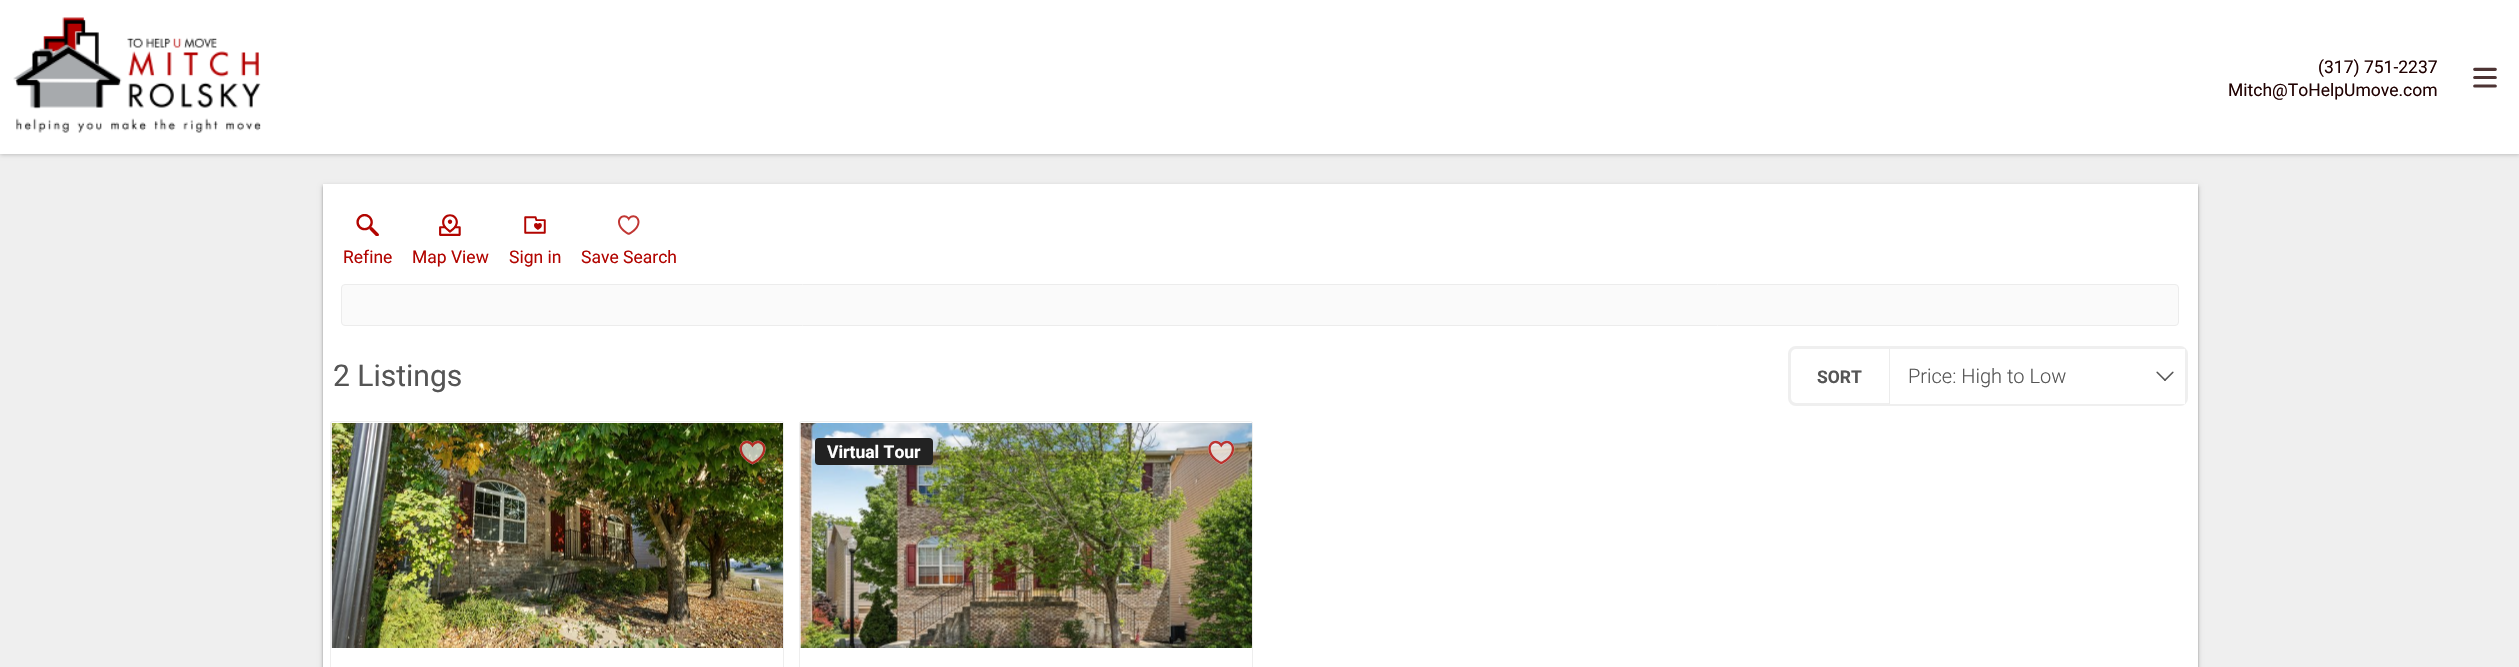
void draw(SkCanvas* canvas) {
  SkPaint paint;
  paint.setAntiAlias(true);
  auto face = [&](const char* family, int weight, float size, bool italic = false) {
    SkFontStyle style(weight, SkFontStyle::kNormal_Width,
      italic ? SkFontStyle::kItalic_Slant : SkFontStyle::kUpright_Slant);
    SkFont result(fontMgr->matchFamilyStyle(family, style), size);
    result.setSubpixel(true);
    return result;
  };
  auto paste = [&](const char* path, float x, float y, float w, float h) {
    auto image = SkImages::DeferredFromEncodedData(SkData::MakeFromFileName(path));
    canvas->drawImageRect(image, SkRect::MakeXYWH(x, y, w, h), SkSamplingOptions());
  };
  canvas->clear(0xffefefef);
  paint.setColor(0x33000000);
  paint.setMaskFilter(SkMaskFilter::MakeBlur(kNormal_SkBlurStyle, 2));
  canvas->drawRect(SkRect::MakeXYWH(0, 1, 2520, 154), paint);
  paint.setMaskFilter(nullptr);
  paint.setColor(0xffffffff);
  canvas->drawRect(SkRect::MakeXYWH(0, 0, 2519, 154), paint);
  paste("img/1.png", 13, 17, 248, 116);
  paste("img/2.png", 2473, 67, 24, 21);
  paint.setColor(0x40000000);
  paint.setMaskFilter(SkMaskFilter::MakeBlur(kNormal_SkBlurStyle, 1));
  canvas->drawRect(SkRect::MakeXYWH(323, 186, 1875, 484), paint);
  paint.setMaskFilter(nullptr);
  paint.setColor(0x33000000);
  paint.setMaskFilter(SkMaskFilter::MakeBlur(kNormal_SkBlurStyle, 2.5f));
  canvas->drawRect(SkRect::MakeXYWH(323, 186, 1875, 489), paint);
  paint.setMaskFilter(nullptr);
  paint.setColor(0xffffffff);
  canvas->drawRect(SkRect::MakeXYWH(323, 184, 1875, 483), paint);
  paste("img/3.png", 356, 214, 23, 22);
  paste("img/4.png", 439, 214, 22, 22);
  paste("img/5.png", 524, 216, 22, 18);
  paste("img/6.png", 618, 215, 22, 20);
  paint.setColor(0xfffafafa);
  canvas->drawRoundRect(SkRect::MakeXYWH(341.5f, 284.5f, 1837, 41), 3.5f, 3.5f, paint);
  paint.setStroke(true);
  paint.setStrokeWidth(1);
  paint.setColor(0xffececec);
  canvas->drawRoundRect(SkRect::MakeXYWH(341.5f, 284.5f, 1837, 41), 3.5f, 3.5f, paint);
  paint.setStrokeWidth(3);
  paint.setColor(0xffefefef);
  canvas->drawRoundRect(SkRect::MakeXYWH(1789.5f, 347.5f, 397, 57), 6.5f, 6.5f, paint);
  paint.setStroke(false);
  paint.setColor(0xffffffff);
  canvas->drawRect(SkRect::MakeXYWH(1890, 349, 295, 55), paint);
  paint.setColor(0xffececec);
  canvas->drawRect(SkRect::MakeXYWH(1889, 349, 1, 55), paint);
  paste("img/7.png", 2156, 371, 18, 10);
  paint.setStroke(true);
  paint.setStrokeWidth(1);
  paint.setColor(0xffeeeeee);
  canvas->drawRoundRect(SkRect::MakeXYWH(330.5f, 421.5f, 453, 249), 2, 2, paint);
  paste("img/8.png", 331, 423, 452, 225);
  paste("img/9.png", 739, 440, 27, 25);
  canvas->drawRoundRect(SkRect::MakeXYWH(799.5f, 421.5f, 453, 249), 2, 2, paint);
  paste("img/10.png", 800, 423, 452, 225);
  paint.setStroke(false);
  paint.setColor(0xff222222);
  canvas->drawRoundRect(SkRect::MakeXYWH(815, 438, 118, 27), 4, 4, paint);
  paste("img/11.png", 1208, 440, 27, 25);
  auto f0 = face("Roboto", 400, 17.5f);
  paint.setColor(0xff210202);
  canvas->drawString("(317) 751-2237", 2318, 73, f0, paint);
  canvas->drawString("Mitch@ToHelpUmove.com", 2228, 96, f0, paint);
  paint.setColor(0xffb20501);
  {
    const struct { const char* s; float x, y; } items[] = {
      {"Refine", 343, 263},
      {"Map View", 412, 263},
      {"Sign in", 509, 263},
      {"Save Search", 581, 263},
    };
    for (auto [s, x, y] : items) {
      canvas->drawString(s, x, y, f0, paint);
    }
  }
  auto f1 = face("Roboto", 400, 30);
  paint.setColor(0xff555555);
  canvas->drawString("2 Listings", 333, 386, f1, paint);
  auto f2 = face("Roboto", 700, 17.5f);
  canvas->drawString("SORT", 1817, 383, f2, paint);
  auto f3 = face("Roboto", 300, 20);
  canvas->drawString("Price: High to Low", 1908, 383, f3, paint);
  paint.setColor(0xffffffff);
  canvas->drawString("Virtual Tour", 827, 458, f2, paint);
}
